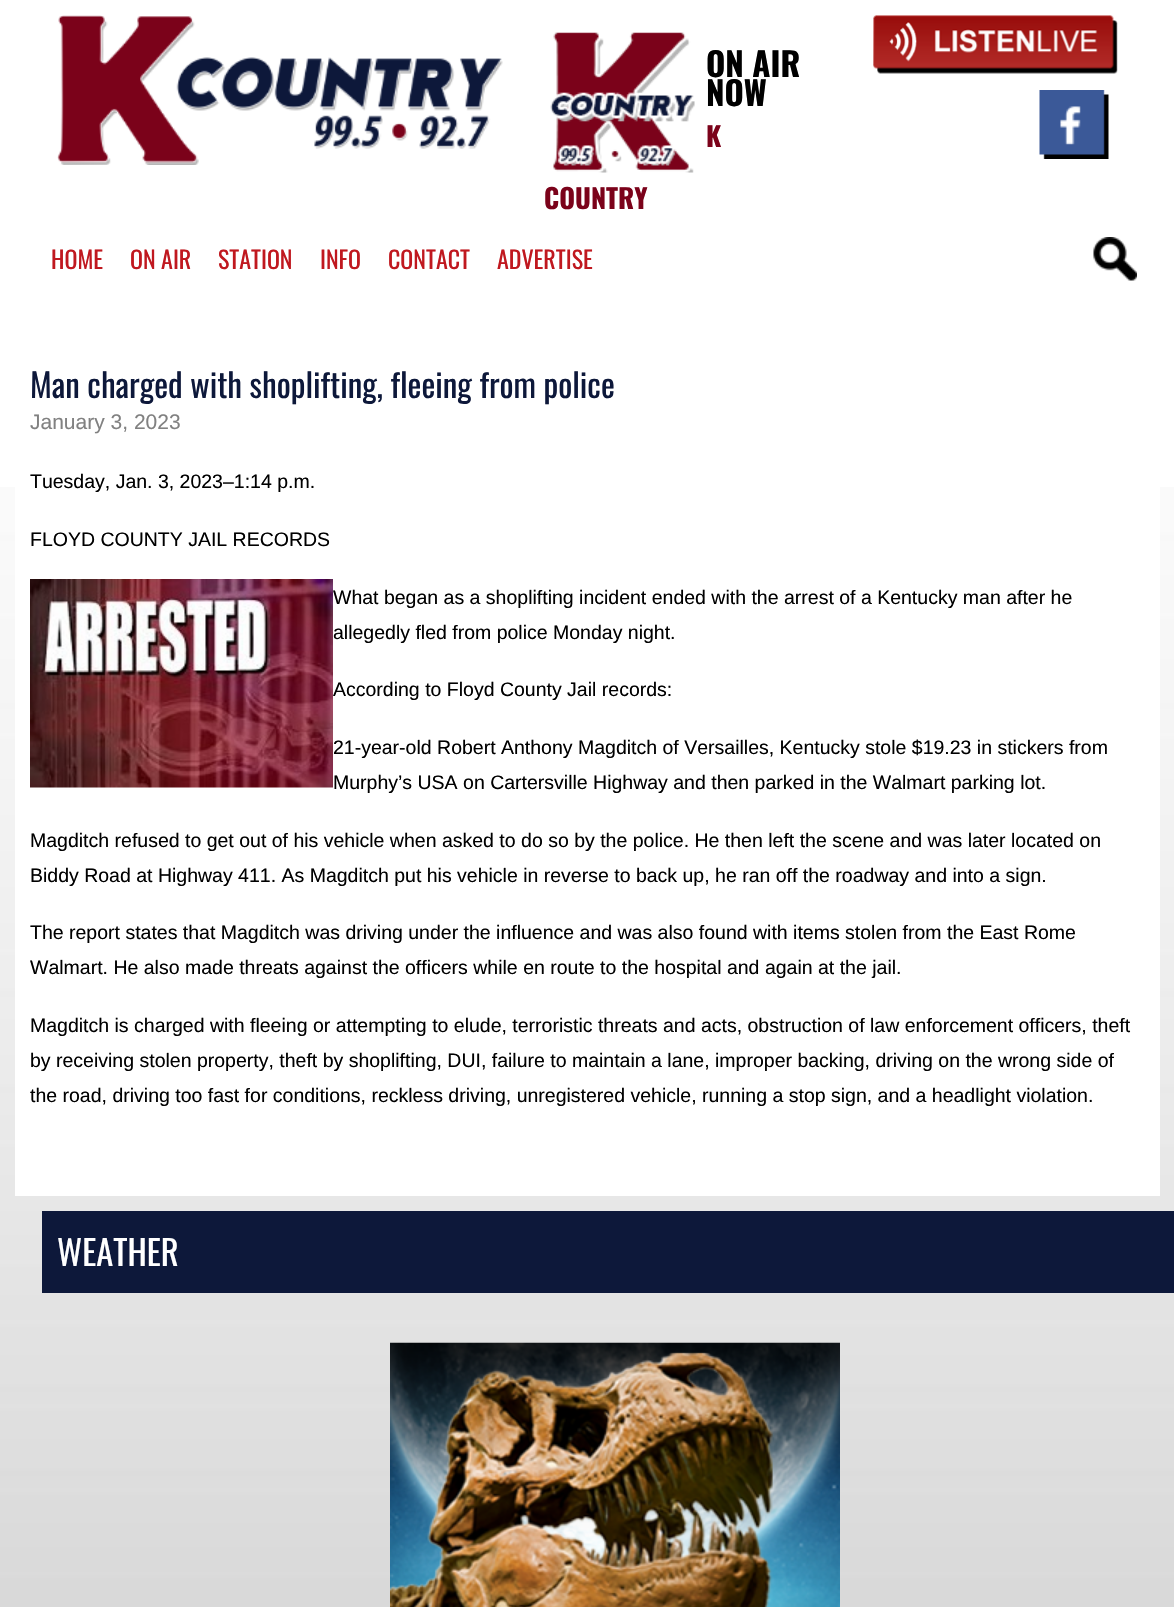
void draw(SkCanvas* canvas) {
  SkPaint paint;
  paint.setAntiAlias(true);
  auto face = [&](const char* family, int weight, float size, bool italic = false) {
    SkFontStyle style(weight, SkFontStyle::kNormal_Width,
      italic ? SkFontStyle::kItalic_Slant : SkFontStyle::kUpright_Slant);
    SkFont result(fontMgr->matchFamilyStyle(family, style), size);
    result.setSubpixel(true);
    return result;
  };
  auto paste = [&](const char* path, float x, float y, float w, float h) {
    auto image = SkImages::DeferredFromEncodedData(SkData::MakeFromFileName(path));
    canvas->drawImageRect(image, SkRect::MakeXYWH(x, y, w, h), SkSamplingOptions());
  };
  canvas->clear(0xffffffff);
  paste("img/1.png", 0, 487, 1174, 1120);
  paste("img/2.png", 57, 15, 446, 150);
  paste("img/3.png", 550, 32, 145, 141);
  paste("img/4.png", 873, 15, 245, 59);
  paste("img/5.png", 1039, 90, 70, 69);
  paste("img/6.png", 1093, 237, 44, 44);
  paint.setColor(0xffffffff);
  canvas->drawRect(SkRect::MakeXYWH(15, 487, 1145, 709), paint);
  paste("img/7.png", 30, 579, 303, 209);
  paint.setColor(0xff0d183a);
  canvas->drawRect(SkRect::MakeXYWH(42, 1211, 1132, 82), paint);
  paste("img/8.png", 390, 1342, 450, 265);
  auto f0 = face("Oswald", 700, 33);
  paint.setColor(0xff000000);
  canvas->drawString("ON AIR", 706, 77, f0, paint);
  canvas->drawString("NOW", 706, 106, f0, paint);
  auto f1 = face("Oswald", 700, 27);
  paint.setColor(0xff7b021a);
  canvas->drawString("K", 706, 147, f1, paint);
  canvas->drawString("COUNTRY", 544, 209, f1, paint);
  auto f2 = face("Oswald", 400, 24);
  paint.setColor(0xffc0181f);
  {
    const struct { const char* s; float x, y; } items[] = {
      {"HOME", 51, 269},
      {"ON AIR", 130, 269},
      {"STATION", 218, 269},
      {"INFO", 320, 269},
      {"CONTACT", 388, 269},
      {"ADVERTISE", 497, 269},
    };
    for (auto [s, x, y] : items) {
      canvas->drawString(s, x, y, f2, paint);
    }
  }
  auto f3 = face("Oswald", 400, 33);
  paint.setColor(0xff0d183a);
  canvas->drawString("Man charged with shoplifting, fleeing from police", 30, 398, f3, paint);
  auto f4 = face("Liberation Sans", 400, 21);
  paint.setColor(0xff818181);
  canvas->drawString("January 3, 2023", 30, 429, f4, paint);
  auto f5 = face("Liberation Sans", 400, 19.5f);
  paint.setColor(0xff000000);
  {
    const struct { const char* s; float x, y; } items[] = {
      {"Tuesday, Jan. 3, 2023–1:14 p.m.", 30, 488},
      {"FLOYD COUNTY JAIL RECORDS", 30, 546},
      {"What began as a shoplifting incident ended with the arrest of a Kentucky man after he", 333, 604},
      {"allegedly fled from police Monday night.", 333, 639},
      {"According to Floyd County Jail records:", 333, 696},
      {"21-year-old Robert Anthony Magditch of Versailles, Kentucky stole $19.23 in stickers from", 333, 754},
      {"Murphy’s USA on Cartersville Highway and then parked in the Walmart parking lot.", 333, 789},
      {"Magditch refused to get out of his vehicle when asked to do so by the police. He then left the scene and was later located on", 30, 847},
      {"Biddy Road at Highway 411. As Magditch put his vehicle in reverse to back up, he ran off the roadway and into a sign.", 30, 882},
      {"The report states that Magditch was driving under the influence and was also found with items stolen from the East Rome", 30, 939},
      {"Walmart. He also made threats against the officers while en route to the hospital and again at the jail.", 30, 974},
      {"Magditch is charged with fleeing or attempting to elude, terroristic threats and acts, obstruction of law enforcement officers, theft", 30, 1032},
      {"by receiving stolen property, theft by shoplifting, DUI, failure to maintain a lane, improper backing, driving on the wrong side of", 30, 1067},
      {"the road, driving too fast for conditions, reckless driving, unregistered vehicle, running a stop sign, and a headlight violation.", 30, 1102},
    };
    for (auto [s, x, y] : items) {
      canvas->drawString(s, x, y, f5, paint);
    }
  }
  auto f6 = face("Oswald", 400, 34.5f);
  paint.setColor(0xffffffff);
  canvas->drawString("WEATHER", 57, 1266, f6, paint);
}
